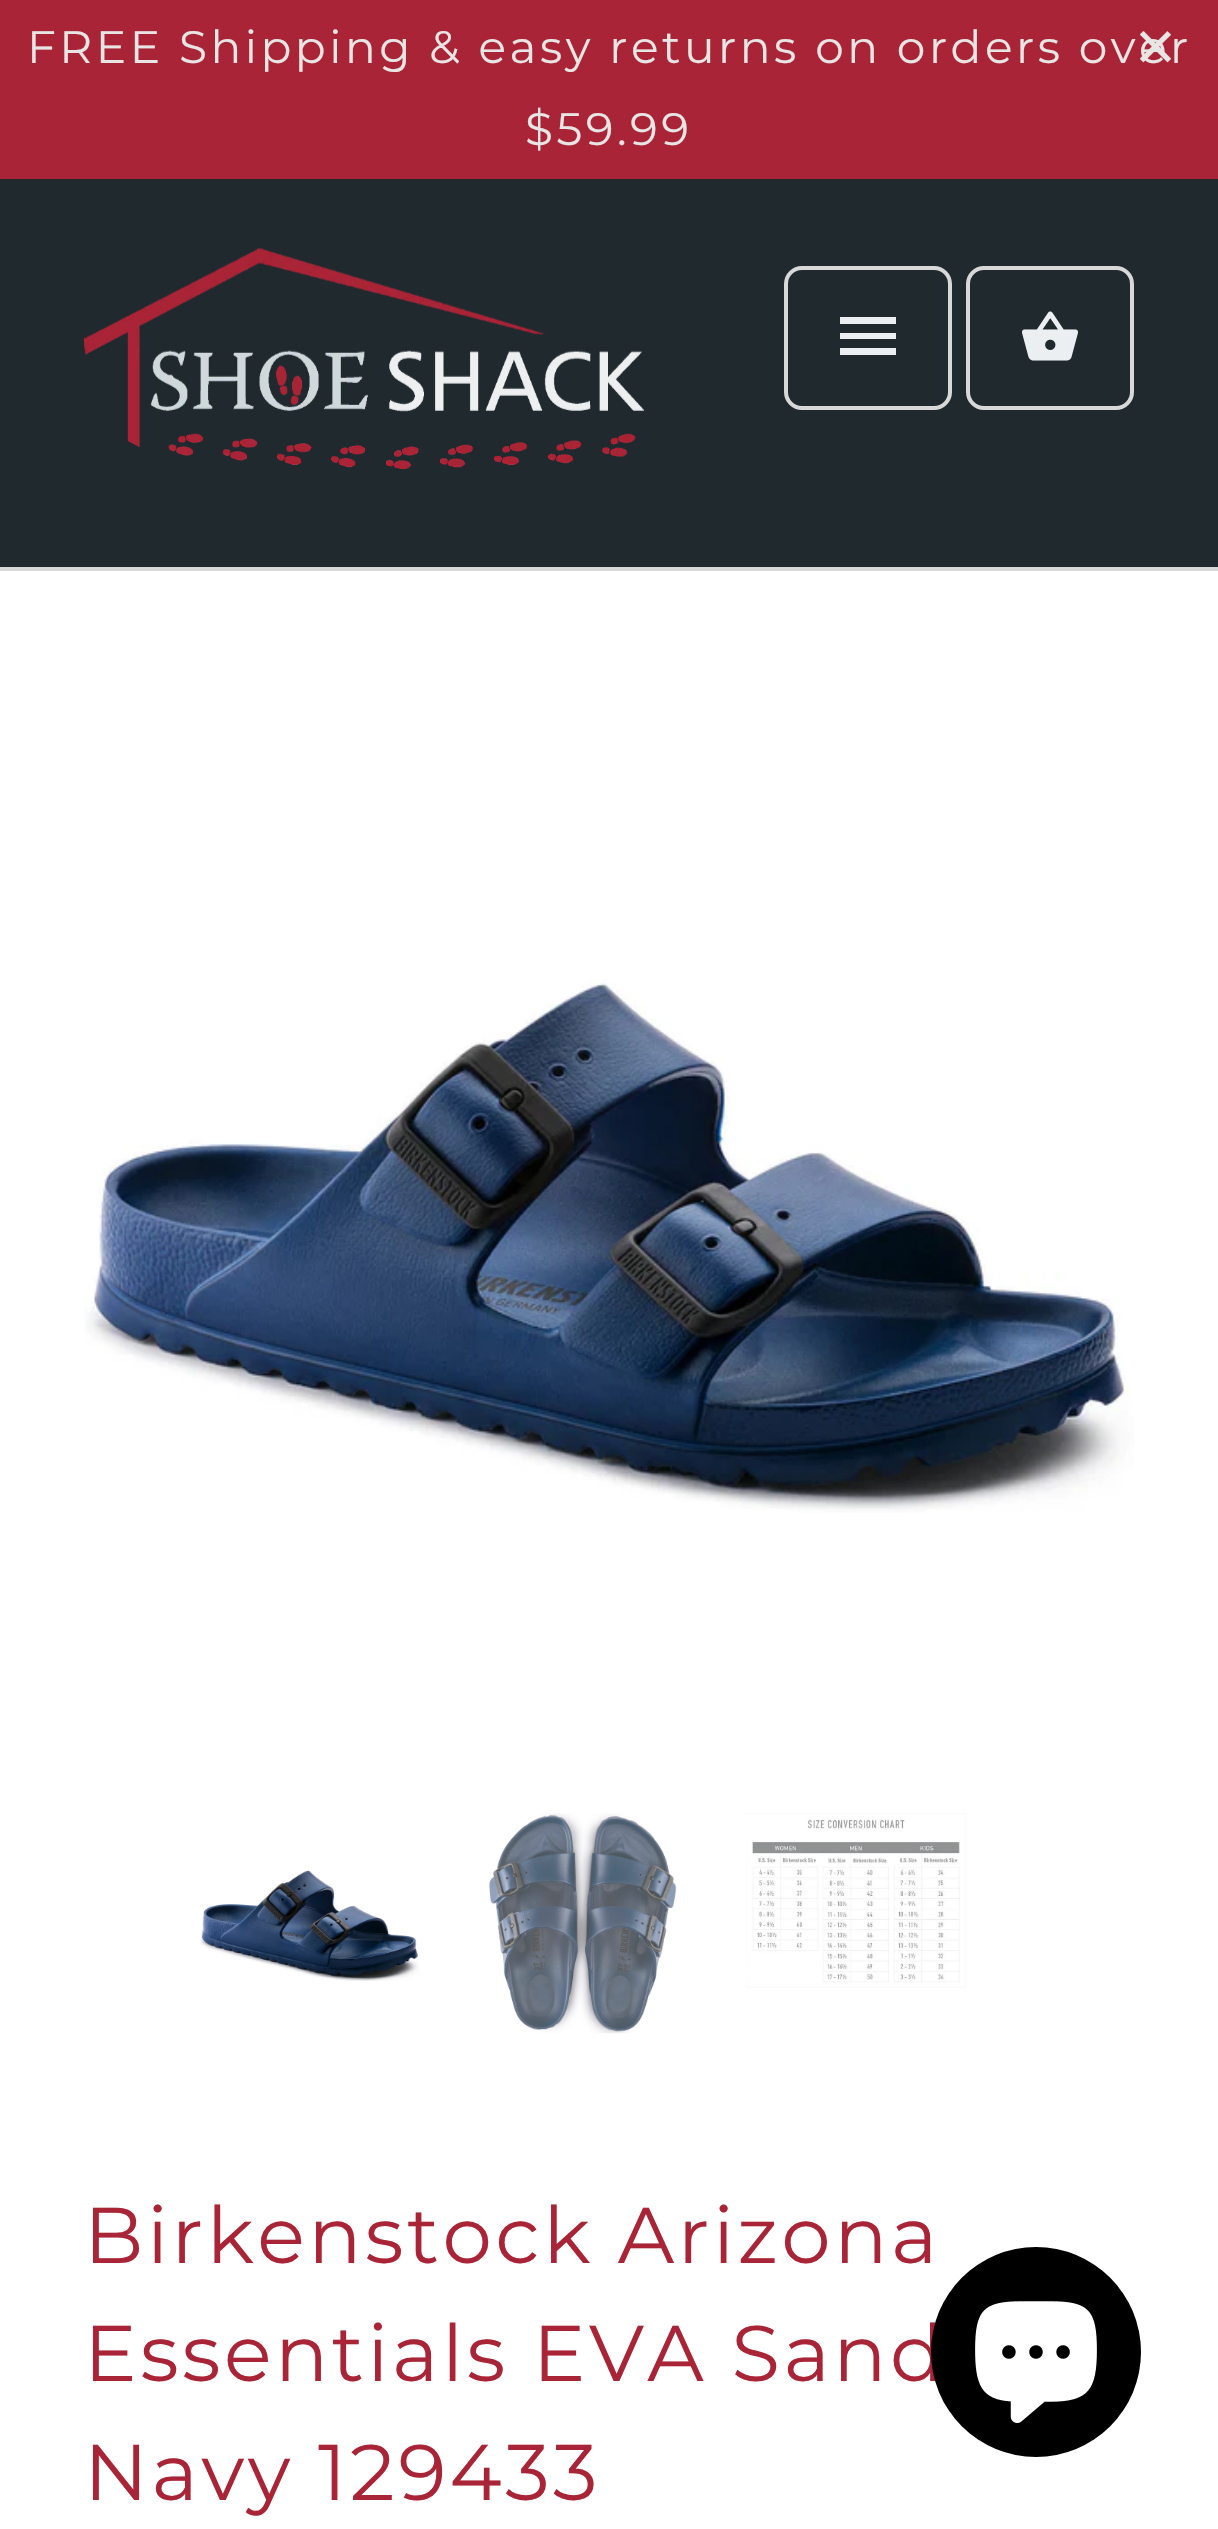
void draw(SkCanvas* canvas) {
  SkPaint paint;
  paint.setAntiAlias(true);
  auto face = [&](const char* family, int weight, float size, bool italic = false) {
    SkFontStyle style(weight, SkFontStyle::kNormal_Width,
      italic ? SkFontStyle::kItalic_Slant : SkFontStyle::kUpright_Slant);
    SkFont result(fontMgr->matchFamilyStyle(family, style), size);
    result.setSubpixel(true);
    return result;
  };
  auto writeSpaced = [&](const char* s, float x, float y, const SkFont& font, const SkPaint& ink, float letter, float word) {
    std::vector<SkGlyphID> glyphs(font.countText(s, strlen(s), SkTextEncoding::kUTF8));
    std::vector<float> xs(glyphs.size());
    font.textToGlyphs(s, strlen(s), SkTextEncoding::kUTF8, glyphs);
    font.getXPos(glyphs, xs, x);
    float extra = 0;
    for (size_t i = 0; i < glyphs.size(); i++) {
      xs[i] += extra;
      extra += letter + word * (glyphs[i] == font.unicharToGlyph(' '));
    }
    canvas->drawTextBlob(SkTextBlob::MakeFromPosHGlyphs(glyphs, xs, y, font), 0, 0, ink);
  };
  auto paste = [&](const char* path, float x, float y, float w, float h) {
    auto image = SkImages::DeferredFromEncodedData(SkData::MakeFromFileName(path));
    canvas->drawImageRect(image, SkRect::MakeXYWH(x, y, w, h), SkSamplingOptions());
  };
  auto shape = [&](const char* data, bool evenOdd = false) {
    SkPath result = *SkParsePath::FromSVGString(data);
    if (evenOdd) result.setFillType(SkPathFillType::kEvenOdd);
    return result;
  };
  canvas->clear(0xffffffff);
  {
    const struct { float x, y, w, h; SkColor color; } items[] = {
      {0, 0, 1218, 179, 0xffa92436},
      {0, 179, 1218, 388, 0xff20292e},
      {0, 567, 1218, 4, 0xffd8d8d8},
    };
    for (auto [x, y, w, h, color] : items) {
      paint.setColor(color);
      canvas->drawRect(SkRect::MakeXYWH(x, y, w, h), paint);
    }
  }
  paste("img/1.png", 84, 248, 560, 221);
  paint.setStroke(true);
  paint.setStrokeWidth(4);
  canvas->drawRoundRect(SkRect::MakeXYWH(786, 268, 164, 140), 16, 16, paint);
  paint.setStroke(false);
  paint.setColor(0xffeceff1);
  canvas->drawPath(shape("M840 355H896V348H840ZM840 339H896V333H840ZM840 317V324H896V317Z"), paint);
  paint.setStroke(true);
  paint.setColor(0xffd8d8d8);
  canvas->drawRoundRect(SkRect::MakeXYWH(968, 268, 164, 140), 16, 16, paint);
  paste("img/2.png", 1022, 311, 56, 50);
  paste("img/3.png", 84, 979, 1050, 534);
  paste("img/4.png", 200, 1870, 219, 111);
  paste("img/5.png", 489, 1813, 188, 221);
  paste("img/6.png", 746, 1813, 220, 175);
  auto f0 = face("Montserrat", 400, 45.5f);
  paint.setStroke(false);
  paint.setColor(0xffe7e6e4);
  writeSpaced("FREE Shipping & easy returns on orders over", 27, 63, f0, paint, 3.5f, 0);
  writeSpaced("$59.99", 525, 145, f0, paint, 3.5f, 0);
  auto f1 = face("Liberation Sans", 400, 70);
  writeSpaced("×", 1135, 70, f1, paint, 3.5f, 0);
  auto f2 = face("Montserrat", 400, 78.75f);
  paint.setColor(0xffa92436);
  {
    const struct { const char* s; float x, y; } items[] = {
      {"Birkenstock Arizona", 84, 2263},
      {"Essentials EVA Sand", 84, 2381},
      {"Navy 129433", 84, 2500},
    };
    for (auto [s, x, y] : items) {
      writeSpaced(s, x, y, f2, paint, 3.5f, 0);
    }
  }
  paint.setColor(0xff000000);
  canvas->drawCircle(1036, 2352, 105, paint);
  paste("img/7.png", 975, 2301, 122, 122);
}
